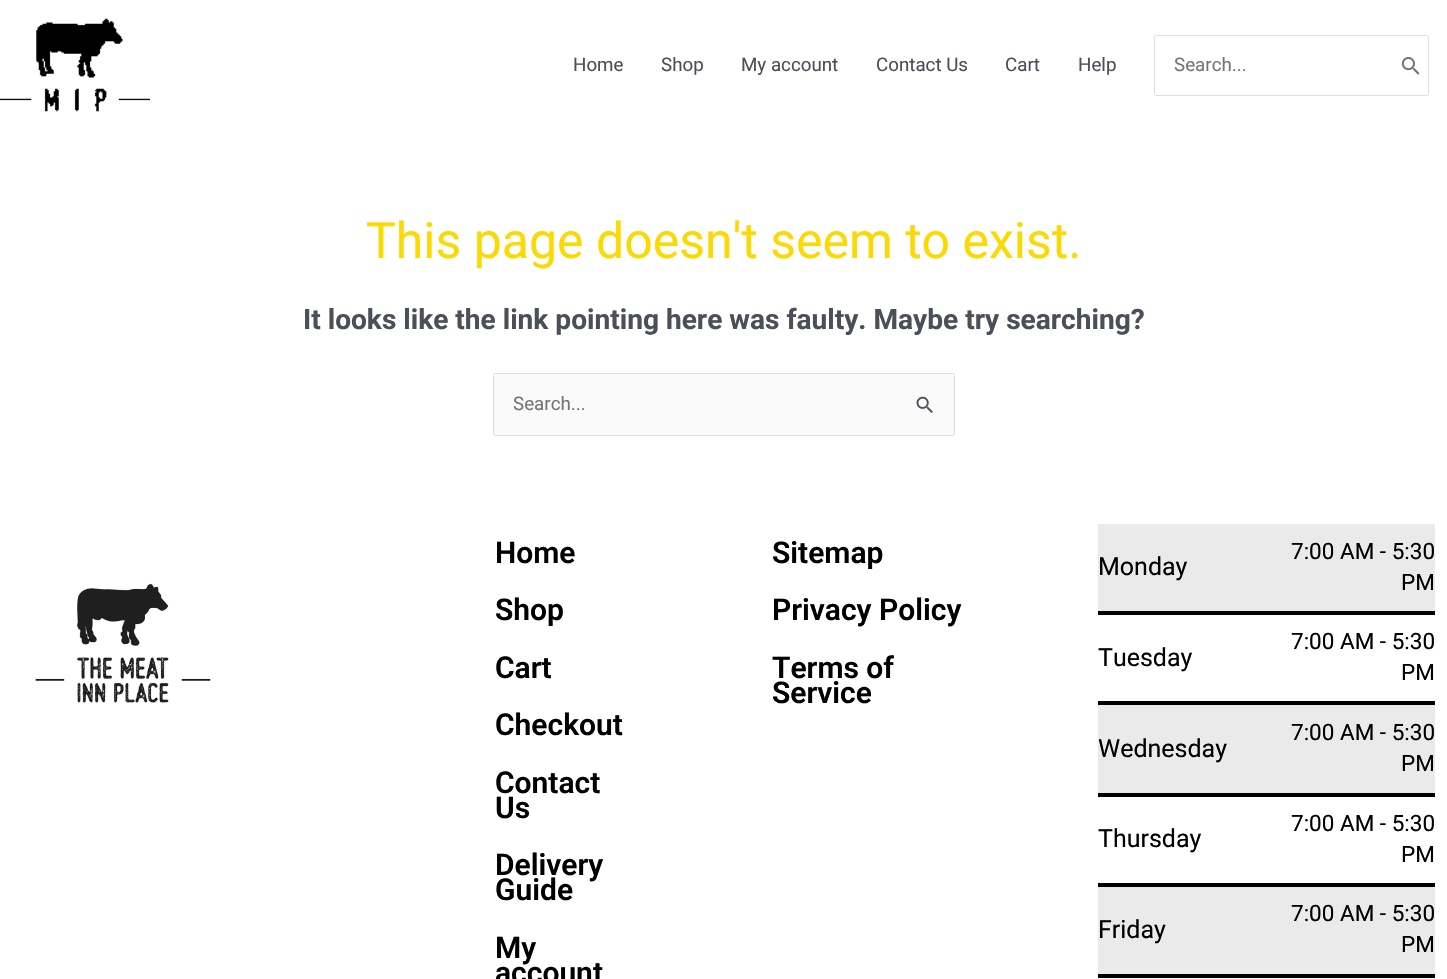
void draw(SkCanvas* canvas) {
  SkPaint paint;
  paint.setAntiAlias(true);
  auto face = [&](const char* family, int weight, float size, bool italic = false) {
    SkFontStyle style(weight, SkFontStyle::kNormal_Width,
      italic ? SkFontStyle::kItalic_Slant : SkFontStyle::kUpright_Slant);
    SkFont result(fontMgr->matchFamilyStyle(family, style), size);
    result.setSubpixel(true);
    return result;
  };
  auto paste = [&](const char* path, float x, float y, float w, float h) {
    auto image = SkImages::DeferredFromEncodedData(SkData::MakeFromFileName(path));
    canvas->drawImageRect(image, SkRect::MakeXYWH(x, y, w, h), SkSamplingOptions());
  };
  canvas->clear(0xffffffff);
  paste("img/1.png", 0, 18, 150, 94);
  paint.setStroke(true);
  paint.setStrokeWidth(1);
  paint.setColor(0xffdddddd);
  canvas->drawRoundRect(SkRect::MakeXYWH(1154.5f, 35.5f, 274, 60), 2, 2, paint);
  paste("img/2.png", 1401, 56, 19, 19);
  paint.setStroke(false);
  paint.setColor(0xfffafafa);
  canvas->drawRoundRect(SkRect::MakeXYWH(493.5f, 373.5f, 461, 62), 2, 2, paint);
  paint.setStroke(true);
  paint.setColor(0xffdddddd);
  canvas->drawRoundRect(SkRect::MakeXYWH(493.5f, 373.5f, 461, 62), 2, 2, paint);
  paste("img/3.png", 916, 396, 17, 17);
  paste("img/4.png", 35, 583, 176, 120);
  paint.setStroke(false);
  {
    const struct { float x, y, w, h; SkColor color; } items[] = {
      {1098, 524, 337, 87, 0xffeaeaea},
      {1098, 611, 337, 4, 0xff000000},
      {1098, 705, 337, 88, 0xffeaeaea},
      {1098, 701, 337, 4, 0xff000000},
      {1098, 793, 337, 4, 0xff000000},
      {1098, 887, 337, 87, 0xffeaeaea},
      {1098, 883, 337, 4, 0xff000000},
      {1098, 974, 337, 4, 0xff000000},
    };
    for (auto [x, y, w, h, color] : items) {
      paint.setColor(color);
      canvas->drawRect(SkRect::MakeXYWH(x, y, w, h), paint);
    }
  }
  auto f0 = face("Roboto", 400, 18.75f);
  paint.setColor(0xff4b4f58);
  {
    const struct { const char* s; float x, y; } items[] = {
      {"Home", 573, 71},
      {"Shop", 661, 71},
      {"My account", 741, 71},
      {"Contact Us", 876, 71},
      {"Cart", 1005, 71},
      {"Help", 1078, 71},
    };
    for (auto [s, x, y] : items) {
      canvas->drawString(s, x, y, f0, paint);
    }
  }
  paint.setColor(0xff757575);
  canvas->drawString("Search...", 1174, 71, f0, paint);
  auto f1 = face("Roboto", 400, 50);
  paint.setColor(0xfffbd902);
  canvas->drawString("This page doesn't seem to exist.", 366, 258, f1, paint);
  auto f2 = face("Roboto", 700, 28.1f);
  paint.setColor(0xff4b4f58);
  canvas->drawString("It looks like the link pointing here was faulty. Maybe try searching?", 303, 329, f2, paint);
  paint.setColor(0xff757575);
  canvas->drawString("Search...", 513, 410, f0, paint);
  auto f3 = face("Roboto", 600, 30);
  paint.setColor(0xff000000);
  {
    const struct { const char* s; float x, y; } items[] = {
      {"Home", 495, 563},
      {"Shop", 495, 620},
      {"Cart", 495, 678},
      {"Checkout", 495, 735},
      {"Contact", 495, 793},
      {"Us", 495, 818},
      {"Delivery", 495, 875},
      {"Guide", 495, 900},
      {"My", 495, 958},
      {"account", 495, 983},
      {"Sitemap", 772, 563},
      {"Privacy Policy", 772, 620},
      {"Terms of", 772, 678},
      {"Service", 772, 703},
    };
    for (auto [s, x, y] : items) {
      canvas->drawString(s, x, y, f3, paint);
    }
  }
  auto f4 = face("Roboto", 400, 25);
  canvas->drawString("Monday", 1098, 575, f4, paint);
  auto f5 = face("Roboto", 400, 22.5f);
  canvas->drawString("7:00 AM - 5:30", 1291, 559, f5, paint);
  canvas->drawString("PM", 1401, 590, f5, paint);
  canvas->drawString("Tuesday", 1098, 666, f4, paint);
  canvas->drawString("7:00 AM - 5:30", 1291, 649, f5, paint);
  canvas->drawString("PM", 1401, 680, f5, paint);
  canvas->drawString("Wednesday", 1098, 757, f4, paint);
  canvas->drawString("7:00 AM - 5:30", 1291, 740, f5, paint);
  canvas->drawString("PM", 1401, 771, f5, paint);
  canvas->drawString("Thursday", 1098, 847, f4, paint);
  canvas->drawString("7:00 AM - 5:30", 1291, 831, f5, paint);
  canvas->drawString("PM", 1401, 862, f5, paint);
  canvas->drawString("Friday", 1098, 938, f4, paint);
  canvas->drawString("7:00 AM - 5:30", 1291, 921, f5, paint);
  canvas->drawString("PM", 1401, 952, f5, paint);
}
